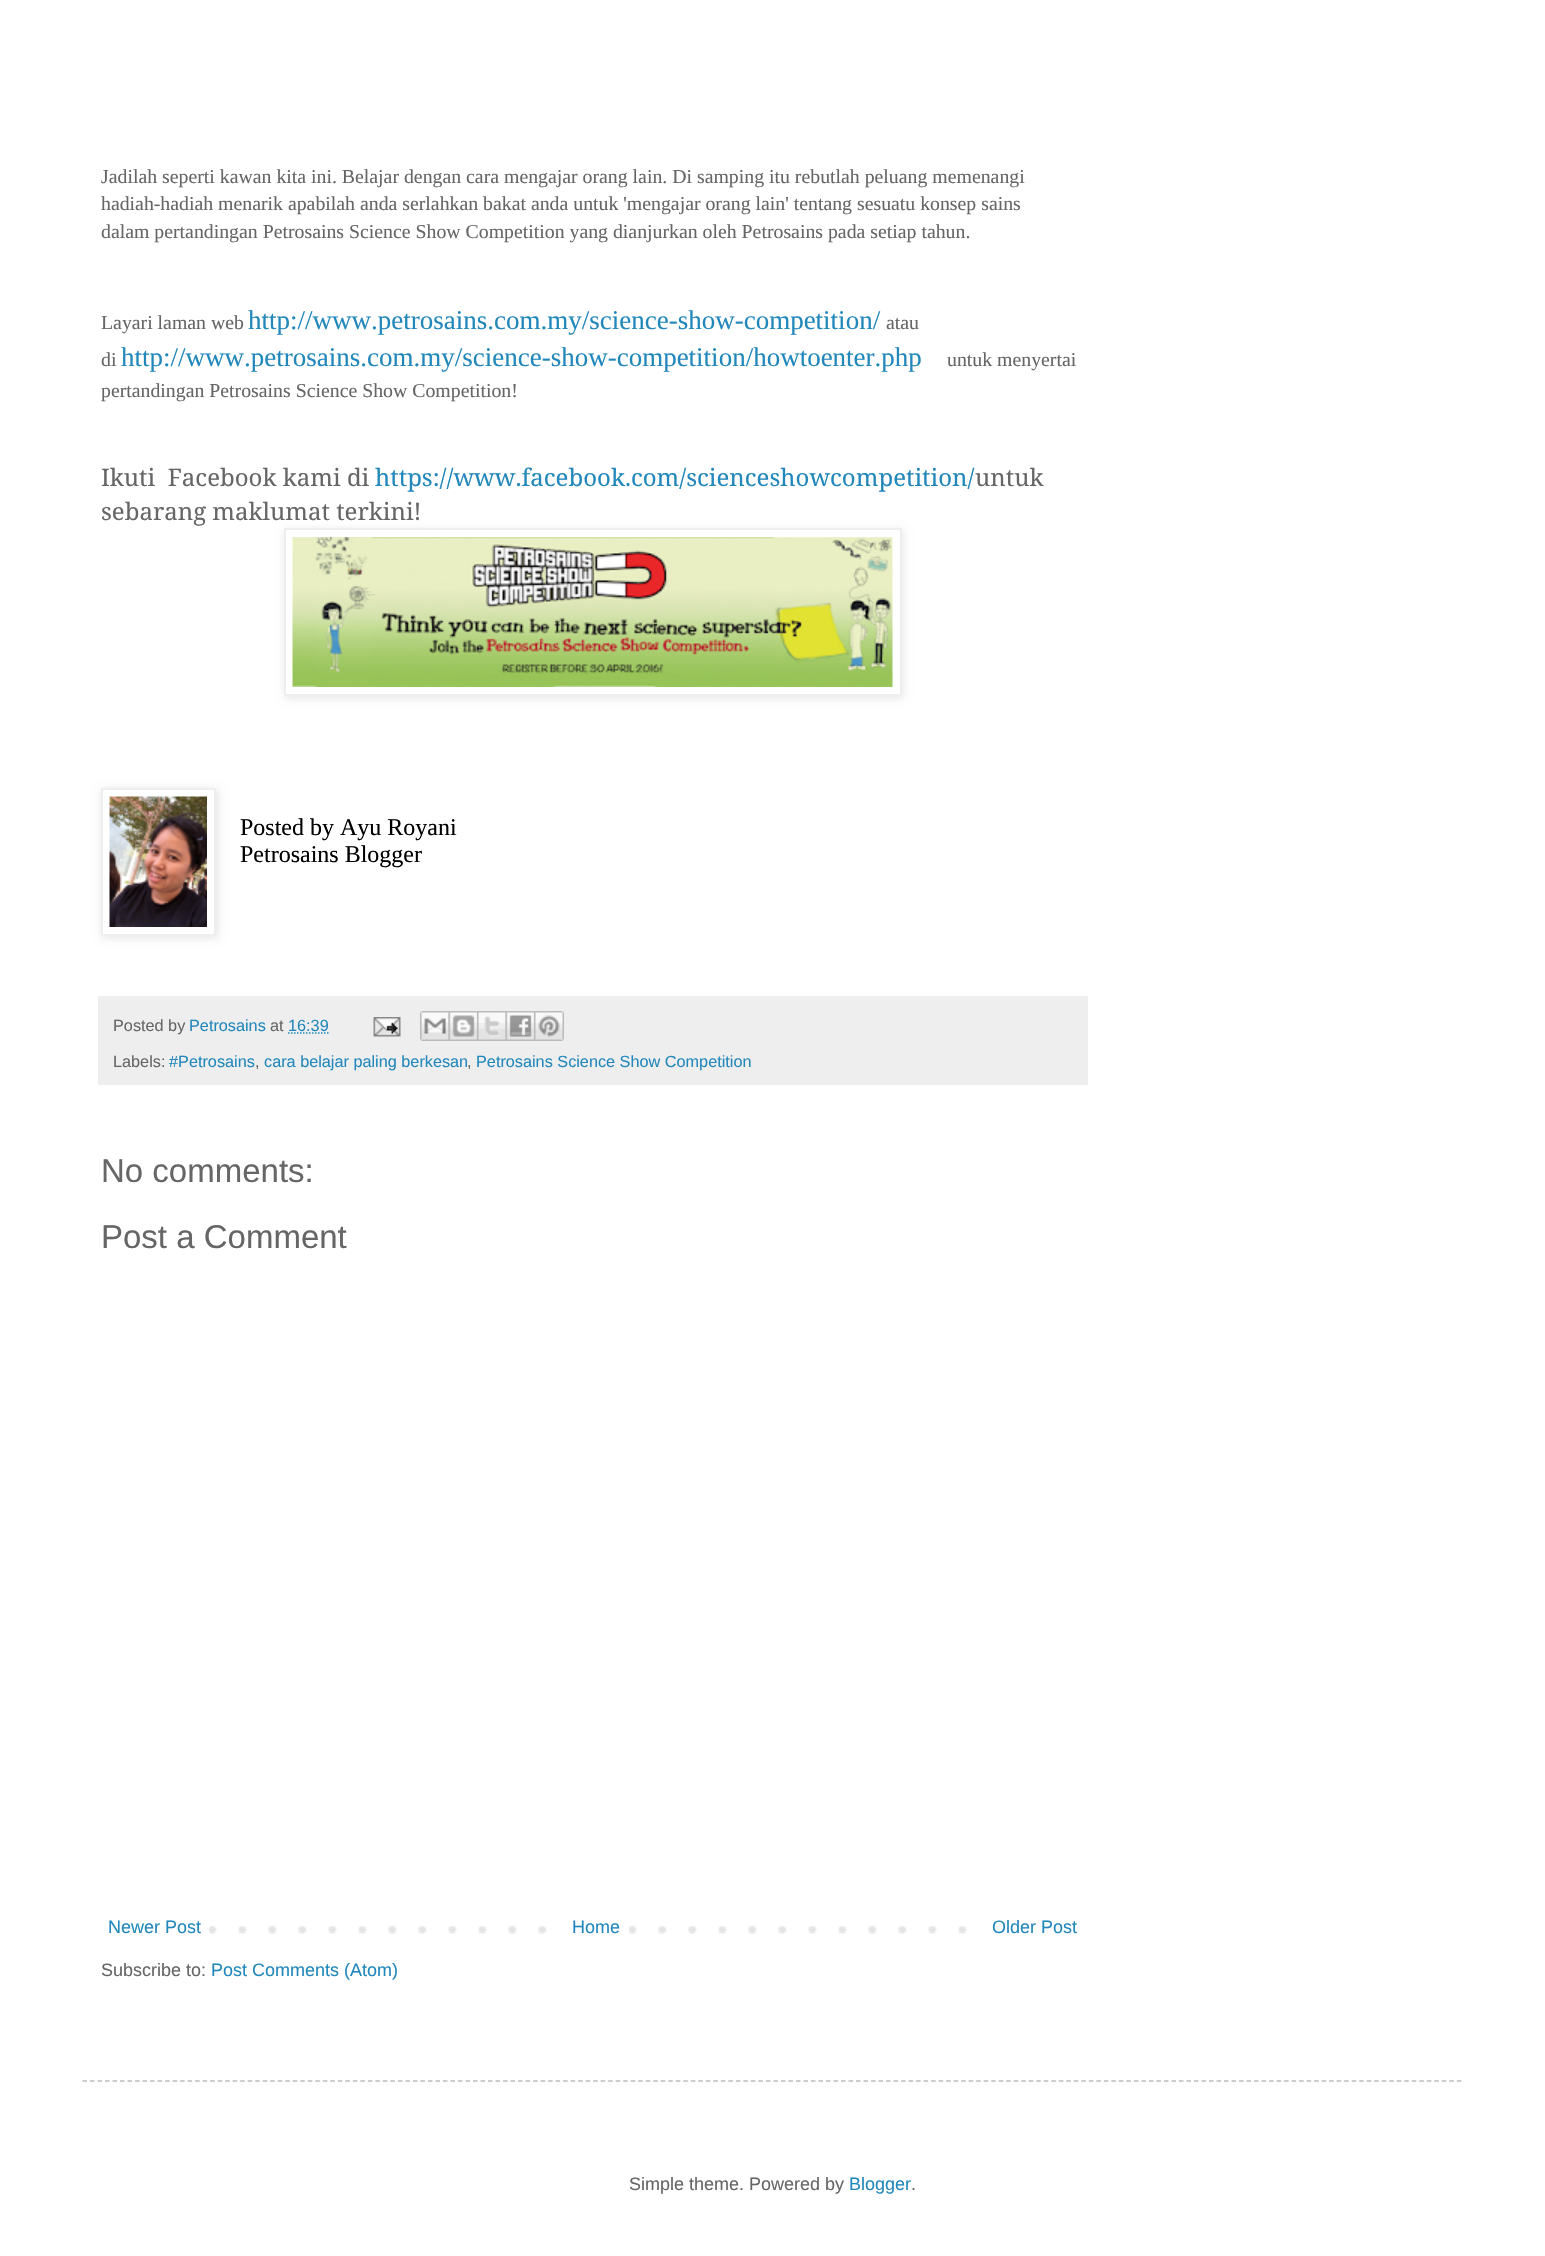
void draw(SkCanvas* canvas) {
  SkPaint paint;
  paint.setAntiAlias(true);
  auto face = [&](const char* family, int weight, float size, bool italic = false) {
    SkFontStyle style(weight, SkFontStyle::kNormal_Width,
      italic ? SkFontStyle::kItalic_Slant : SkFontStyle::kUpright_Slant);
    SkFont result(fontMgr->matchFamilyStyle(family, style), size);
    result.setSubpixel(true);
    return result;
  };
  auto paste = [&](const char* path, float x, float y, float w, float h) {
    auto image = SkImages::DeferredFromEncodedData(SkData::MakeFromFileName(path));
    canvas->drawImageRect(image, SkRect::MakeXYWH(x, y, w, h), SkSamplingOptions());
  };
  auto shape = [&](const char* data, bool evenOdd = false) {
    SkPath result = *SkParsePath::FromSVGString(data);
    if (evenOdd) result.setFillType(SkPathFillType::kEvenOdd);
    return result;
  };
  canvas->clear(0xffffffff);
  paint.setColor(0x1a000000);
  paint.setMaskFilter(SkMaskFilter::MakeBlur(kNormal_SkBlurStyle, 4));
  canvas->drawRect(SkRect::MakeXYWH(285, 530, 618, 168), paint);
  paint.setMaskFilter(nullptr);
  paint.setColor(0xffffffff);
  canvas->drawRect(SkRect::MakeXYWH(285, 529, 616, 166), paint);
  paint.setStroke(true);
  paint.setStrokeWidth(2);
  paint.setColor(0xffeeeeee);
  canvas->drawRect(SkRect::MakeXYWH(285, 529, 616, 166), paint);
  paste("img/1.png", 292, 537, 601, 150);
  canvas->save();
  canvas->clipPath(shape("M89 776H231V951H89ZM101 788H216V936H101Z", true), true);
  paint.setStroke(false);
  paint.setColor(0x1a000000);
  paint.setMaskFilter(SkMaskFilter::MakeBlur(kNormal_SkBlurStyle, 4));
  canvas->drawRect(SkRect::MakeXYWH(102, 789, 116, 149), paint);
  paint.setMaskFilter(nullptr);
  canvas->restore();
  paint.setStroke(true);
  paint.setColor(0xffeeeeee);
  canvas->drawRect(SkRect::MakeXYWH(102, 789, 113, 146), paint);
  paste("img/2.png", 109, 796, 98, 131);
  paint.setStroke(false);
  canvas->drawRect(SkRect::MakeXYWH(98, 996, 990, 89), paint);
  paint.setStroke(true);
  paint.setStrokeWidth(1.5f);
  paint.setColor(0xff2288bb);
  paint.setPathEffect(SkDashPathEffect::Make({{1.5f, 1.5f}}, 0));
  canvas->drawPath(shape("M288 1033H328.5"), paint);
  paint.setPathEffect(nullptr);
  paste("img/3.png", 373, 1017, 28, 20);
  paste("img/4.png", 420, 1011, 29, 30);
  paste("img/5.png", 448, 1011, 29, 30);
  paste("img/6.png", 477, 1011, 29, 30);
  paste("img/7.png", 505, 1011, 29, 30);
  paste("img/8.png", 534, 1011, 30, 30);
  paste("img/9.png", 209, 1926, 758, 8);
  paint.setStroke(false);
  paint.setColor(0xffffffff);
  canvas->drawRect(SkRect::MakeXYWH(568, 1926, 61, 8), paint);
  paint.setStroke(true);
  paint.setColor(0xffbbbbbb);
  paint.setPathEffect(SkDashPathEffect::Make({{4.5f, 3.01f}}, 0));
  canvas->drawPath(shape("M82.5 2081H1462.5"), paint);
  paint.setPathEffect(nullptr);
  auto f0 = face("Liberation Serif", 400, 19.8f);
  paint.setStroke(false);
  paint.setColor(0xff666666);
  {
    const struct { const char* s; float x, y; } items[] = {
      {"Jadilah seperti kawan kita ini. Belajar dengan cara mengajar orang lain. Di samping itu rebutlah peluang memenangi", 101, 183},
      {"hadiah-hadiah menarik apabilah anda serlahkan bakat anda untuk 'mengajar orang lain' tentang sesuatu konsep sains", 101, 210},
      {"dalam pertandingan Petrosains Science Show Competition yang dianjurkan oleh Petrosains pada setiap tahun.", 101, 238},
      {"Layari laman web", 101, 329},
    };
    for (auto [s, x, y] : items) {
      canvas->drawString(s, x, y, f0, paint);
    }
  }
  auto f1 = face("Liberation Serif", 400, 27);
  paint.setColor(0xff2288bb);
  canvas->drawString("http://www.petrosains.com.my/science-show-competition/", 248, 329, f1, paint);
  paint.setColor(0xff666666);
  canvas->drawString("atau", 886, 329, f0, paint);
  canvas->drawString("di", 101, 366, f0, paint);
  paint.setColor(0xff2288bb);
  canvas->drawString("http://www.petrosains.com.my/science-show-competition/howtoenter.php", 121, 366, f1, paint);
  paint.setColor(0xff666666);
  canvas->drawString("untuk menyertai", 947, 366, f0, paint);
  canvas->drawString("pertandingan Petrosains Science Show Competition!", 101, 397, f0, paint);
  auto f2 = face("Noto Serif", 400, 24);
  canvas->drawString("Ikuti  Facebook kami di", 101, 486, f2, paint);
  paint.setColor(0xff2288bb);
  canvas->drawString("https://www.facebook.com/scienceshowcompetition/", 375, 486, f2, paint);
  paint.setColor(0xff666666);
  canvas->drawString("untuk", 975, 486, f2, paint);
  canvas->drawString("sebarang maklumat terkini!", 101, 520, f2, paint);
  auto f3 = face("Liberation Serif", 400, 24);
  paint.setColor(0xff000000);
  canvas->drawString("Posted by Ayu Royani", 240, 835, f3, paint);
  canvas->drawString("Petrosains Blogger", 240, 862, f3, paint);
  auto f4 = face("Liberation Sans", 400, 16.25f);
  paint.setColor(0xff666666);
  canvas->drawString("Posted by", 113, 1031, f4, paint);
  paint.setColor(0xff2288bb);
  canvas->drawString("Petrosains", 189, 1031, f4, paint);
  paint.setColor(0xff666666);
  canvas->drawString("at", 270, 1031, f4, paint);
  paint.setColor(0xff2288bb);
  canvas->drawString("16:39", 288, 1031, f4, paint);
  paint.setColor(0xff666666);
  canvas->drawString("Labels:", 113, 1067, f4, paint);
  paint.setColor(0xff2288bb);
  canvas->drawString("#Petrosains", 169, 1067, f4, paint);
  paint.setColor(0xff666666);
  canvas->drawString(",", 255, 1067, f4, paint);
  paint.setColor(0xff2288bb);
  canvas->drawString("cara belajar paling berkesan", 264, 1067, f4, paint);
  paint.setColor(0xff666666);
  canvas->drawString(",", 467, 1067, f4, paint);
  paint.setColor(0xff2288bb);
  canvas->drawString("Petrosains Science Show Competition", 476, 1067, f4, paint);
  auto f5 = face("Liberation Sans", 400, 33);
  paint.setColor(0xff666666);
  canvas->drawString("No comments:", 101, 1182, f5, paint);
  canvas->drawString("Post a Comment", 101, 1248, f5, paint);
  auto f6 = face("Liberation Sans", 400, 18);
  paint.setColor(0xff2288bb);
  {
    const struct { const char* s; float x, y; } items[] = {
      {"Newer Post", 108, 1933},
      {"Home", 572, 1933},
      {"Older Post", 992, 1933},
    };
    for (auto [s, x, y] : items) {
      canvas->drawString(s, x, y, f6, paint);
    }
  }
  paint.setColor(0xff666666);
  canvas->drawString("Subscribe to:", 101, 1976, f6, paint);
  paint.setColor(0xff2288bb);
  canvas->drawString("Post Comments (Atom)", 211, 1976, f6, paint);
  paint.setColor(0xff666666);
  canvas->drawString("Simple theme. Powered by", 629, 2190, f6, paint);
  paint.setColor(0xff2288bb);
  canvas->drawString("Blogger", 849, 2190, f6, paint);
  paint.setColor(0xff666666);
  canvas->drawString(".", 911, 2190, f6, paint);
}
